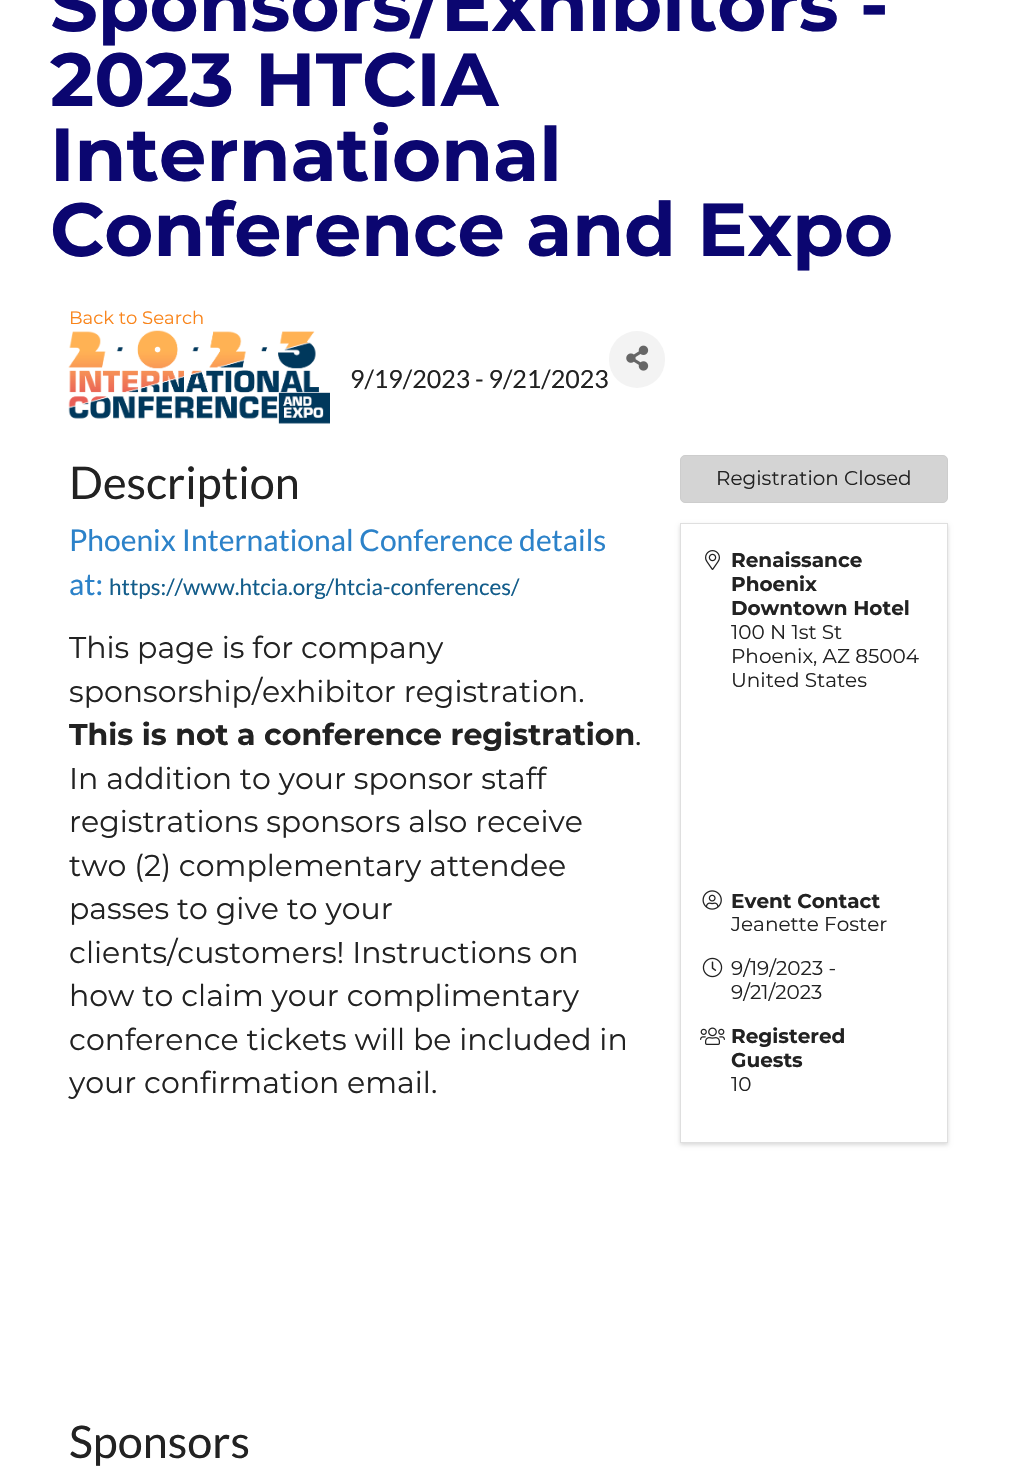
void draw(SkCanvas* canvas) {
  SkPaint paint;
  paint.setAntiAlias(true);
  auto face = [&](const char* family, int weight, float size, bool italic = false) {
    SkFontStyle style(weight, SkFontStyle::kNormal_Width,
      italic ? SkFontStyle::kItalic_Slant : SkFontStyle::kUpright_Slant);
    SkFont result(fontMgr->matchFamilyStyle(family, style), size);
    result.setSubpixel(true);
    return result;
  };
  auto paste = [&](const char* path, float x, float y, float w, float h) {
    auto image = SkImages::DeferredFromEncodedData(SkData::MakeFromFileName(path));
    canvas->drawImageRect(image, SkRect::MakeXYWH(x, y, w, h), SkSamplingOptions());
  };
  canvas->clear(0xffffffff);
  paste("img/1.png", 68, 330, 262, 94);
  paint.setColor(0xfff3f3f3);
  canvas->drawRoundRect(SkRect::MakeXYWH(609, 331, 56, 57), 28, 28, paint);
  paste("img/2.png", 626, 345, 23, 26);
  paint.setColor(0xffd4d4d4);
  canvas->drawRoundRect(SkRect::MakeXYWH(680.5f, 455.5f, 267, 47), 4.5f, 4.5f, paint);
  paint.setStroke(true);
  paint.setStrokeWidth(1);
  paint.setColor(0xffcdcdcd);
  canvas->drawRoundRect(SkRect::MakeXYWH(680.5f, 455.5f, 267, 47), 4.5f, 4.5f, paint);
  paint.setStroke(false);
  paint.setColor(0x26000000);
  paint.setMaskFilter(SkMaskFilter::MakeBlur(kNormal_SkBlurStyle, 2));
  canvas->drawRect(SkRect::MakeXYWH(680, 525, 268, 620), paint);
  paint.setMaskFilter(nullptr);
  paint.setColor(0xffffffff);
  canvas->drawRect(SkRect::MakeXYWH(680.5f, 523.5f, 267, 619), paint);
  paint.setStroke(true);
  paint.setColor(0xffdfdfdf);
  canvas->drawRect(SkRect::MakeXYWH(680.5f, 523.5f, 267, 619), paint);
  paste("img/3.png", 705, 550, 15, 20);
  paste("img/4.png", 702, 890, 20, 20);
  paste("img/5.png", 702, 957, 21, 21);
  paste("img/6.png", 700, 1027, 25, 18);
  auto f0 = face("Montserrat", 700, 75);
  paint.setStroke(false);
  paint.setColor(0xff0b0670);
  {
    const struct { const char* s; float x, y; } items[] = {
      {"Sponsors/Exhibitors -", 50, 31},
      {"2023 HTCIA", 50, 106},
      {"International", 50, 181},
      {"Conference and Expo", 50, 256},
    };
    for (auto [s, x, y] : items) {
      canvas->drawString(s, x, y, f0, paint);
    }
  }
  auto f1 = face("Montserrat", 400, 18);
  paint.setColor(0xfff9841a);
  canvas->drawString("Back to Search", 69, 324, f1, paint);
  auto f2 = face("Lato", 400, 25);
  paint.setColor(0xff222222);
  canvas->drawString("9/19/2023 - 9/21/2023", 350, 388, f2, paint);
  auto f3 = face("Lato", 400, 45);
  canvas->drawString("Description", 69, 499, f3, paint);
  auto f4 = face("Lato", 400, 30);
  paint.setColor(0xff2c82c9);
  canvas->drawString("Phoenix International Conference details", 69, 551, f4, paint);
  canvas->drawString("at:", 69, 595, f4, paint);
  auto f5 = face("Lato", 400, 22.5f);
  paint.setColor(0xff135d8b);
  canvas->drawString("https://www.htcia.org/htcia-conferences/", 109, 595, f5, paint);
  auto f6 = face("Montserrat", 400, 30);
  paint.setColor(0xff222222);
  canvas->drawString("This page is for company", 69, 658, f6, paint);
  canvas->drawString("sponsorship/exhibitor registration.", 69, 702, f6, paint);
  auto f7 = face("Montserrat", 700, 30);
  canvas->drawString("This is not a conference registration", 69, 745, f7, paint);
  {
    const struct { const char* s; float x, y; } items[] = {
      {".", 635, 745},
      {"In addition to your sponsor staff", 69, 789},
      {"registrations sponsors also receive", 69, 832},
      {"two (2) complementary attendee", 69, 876},
      {"passes to give to your", 69, 919},
      {"clients/customers! Instructions on", 69, 963},
      {"how to claim your complimentary", 69, 1006},
      {"conference tickets will be included in", 69, 1050},
      {"your confirmation email.", 69, 1093},
    };
    for (auto [s, x, y] : items) {
      canvas->drawString(s, x, y, f6, paint);
    }
  }
  canvas->drawString("Sponsors", 69, 1458, f3, paint);
  auto f8 = face("Montserrat", 400, 20);
  canvas->drawString("Registration Closed", 716, 485, f8, paint);
  auto f9 = face("Montserrat", 700, 20);
  {
    const struct { const char* s; float x, y; } items[] = {
      {"Renaissance", 731, 567},
      {"Phoenix", 731, 591},
      {"Downtown Hotel", 731, 615},
    };
    for (auto [s, x, y] : items) {
      canvas->drawString(s, x, y, f9, paint);
    }
  }
  {
    const struct { const char* s; float x, y; } items[] = {
      {"100 N 1st St", 731, 639},
      {"Phoenix, AZ 85004", 731, 663},
      {"United States", 731, 687},
    };
    for (auto [s, x, y] : items) {
      canvas->drawString(s, x, y, f8, paint);
    }
  }
  canvas->drawString("Event Contact", 731, 908, f9, paint);
  {
    const struct { const char* s; float x, y; } items[] = {
      {"Jeanette Foster", 731, 931},
      {"9/19/2023 -", 731, 975},
      {"9/21/2023", 731, 999},
    };
    for (auto [s, x, y] : items) {
      canvas->drawString(s, x, y, f8, paint);
    }
  }
  canvas->drawString("Registered", 731, 1043, f9, paint);
  canvas->drawString("Guests", 731, 1067, f9, paint);
  canvas->drawString("10", 731, 1091, f8, paint);
}
